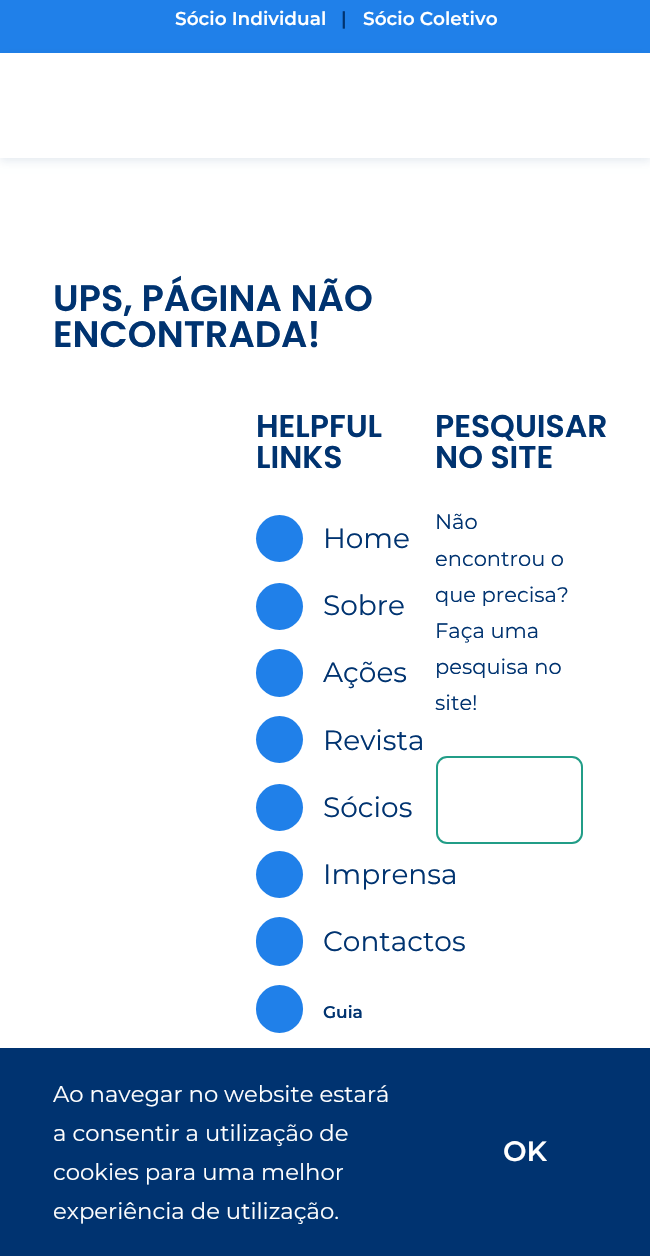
void draw(SkCanvas* canvas) {
  SkPaint paint;
  paint.setAntiAlias(true);
  auto face = [&](const char* family, int weight, float size, bool italic = false) {
    SkFontStyle style(weight, SkFontStyle::kNormal_Width,
      italic ? SkFontStyle::kItalic_Slant : SkFontStyle::kUpright_Slant);
    SkFont result(fontMgr->matchFamilyStyle(family, style), size);
    result.setSubpixel(true);
    return result;
  };
  canvas->clear(0xffffffff);
  paint.setColor(0xff2080e9);
  canvas->drawRect(SkRect::MakeXYWH(0, 0, 650, 53), paint);
  paint.setColor(0x1a003370);
  paint.setMaskFilter(SkMaskFilter::MakeBlur(kNormal_SkBlurStyle, 4.5f));
  canvas->drawRect(SkRect::MakeXYWH(0, 56, 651, 105), paint);
  paint.setMaskFilter(nullptr);
  paint.setColor(0xffffffff);
  canvas->drawRect(SkRect::MakeXYWH(0, 53, 650, 105), paint);
  paint.setColor(0xff2080e9);
  canvas->drawCircle(279.5f, 538.5f, 23.5f, paint);
  canvas->drawCircle(279.5f, 606.5f, 23.5f, paint);
  canvas->drawRoundRect(SkRect::MakeXYWH(256, 649, 47, 48), 23.5f, 23.5f, paint);
  canvas->drawCircle(279.5f, 739.5f, 23.5f, paint);
  canvas->drawCircle(279.5f, 807.5f, 23.5f, paint);
  canvas->drawCircle(279.5f, 874.5f, 23.5f, paint);
  canvas->drawRoundRect(SkRect::MakeXYWH(256, 917, 47, 49), 23.5f, 23.5f, paint);
  canvas->drawRoundRect(SkRect::MakeXYWH(256, 985, 47, 48), 23.5f, 23.5f, paint);
  paint.setStroke(true);
  paint.setStrokeWidth(2);
  paint.setColor(0xff219d87);
  canvas->drawRoundRect(SkRect::MakeXYWH(437, 757, 145, 86), 10, 10, paint);
  paint.setStroke(false);
  paint.setColor(0xff003370);
  canvas->drawRect(SkRect::MakeXYWH(0, 1048, 650, 208), paint);
  auto f0 = face("Montserrat", 600, 18.5f);
  paint.setColor(0xffffffff);
  canvas->drawString("Sócio Individual", 175, 25, f0, paint);
  paint.setColor(0xff003370);
  canvas->drawString("|", 341, 25, f0, paint);
  paint.setColor(0xffffffff);
  canvas->drawString("Sócio Coletivo", 363, 25, f0, paint);
  auto f1 = face("Poppins", 600, 36.75f);
  paint.setColor(0xff003370);
  canvas->drawString("UPS, PÁGINA NÃO", 53, 311, f1, paint);
  canvas->drawString("ENCONTRADA!", 53, 347, f1, paint);
  auto f2 = face("Poppins", 600, 31.5f);
  canvas->drawString("HELPFUL", 256, 437, f2, paint);
  canvas->drawString("LINKS", 256, 468, f2, paint);
  auto f3 = face("Montserrat", 400, 28);
  {
    const struct { const char* s; float x, y; } items[] = {
      {"Home", 323, 548},
      {"Sobre", 323, 615},
      {"Ações", 323, 682},
      {"Revista", 323, 750},
      {"Sócios", 323, 817},
      {"Imprensa", 323, 884},
      {"Contactos", 323, 951},
    };
    for (auto [s, x, y] : items) {
      canvas->drawString(s, x, y, f3, paint);
    }
  }
  auto f4 = face("Montserrat", 600, 17);
  canvas->drawString("Guia", 323, 1018, f4, paint);
  canvas->drawString("PESQUISAR", 435, 437, f2, paint);
  canvas->drawString("NO SITE", 435, 468, f2, paint);
  auto f5 = face("Montserrat", 400, 21);
  {
    const struct { const char* s; float x, y; } items[] = {
      {"Não", 435, 529},
      {"encontrou o", 435, 566},
      {"que precisa?", 435, 602},
      {"Faça uma", 435, 638},
      {"pesquisa no", 435, 674},
      {"site!", 435, 710},
    };
    for (auto [s, x, y] : items) {
      canvas->drawString(s, x, y, f5, paint);
    }
  }
  auto f6 = face("Montserrat", 400, 22.75f);
  paint.setColor(0xffffffff);
  {
    const struct { const char* s; float x, y; } items[] = {
      {"Ao navegar no website estará", 53, 1102},
      {"a consentir a utilização de", 53, 1141},
      {"cookies para uma melhor", 53, 1180},
      {"experiência de utilização.", 53, 1219},
    };
    for (auto [s, x, y] : items) {
      canvas->drawString(s, x, y, f6, paint);
    }
  }
  auto f7 = face("Montserrat", 600, 28);
  canvas->drawString("OK", 503, 1161, f7, paint);
}
